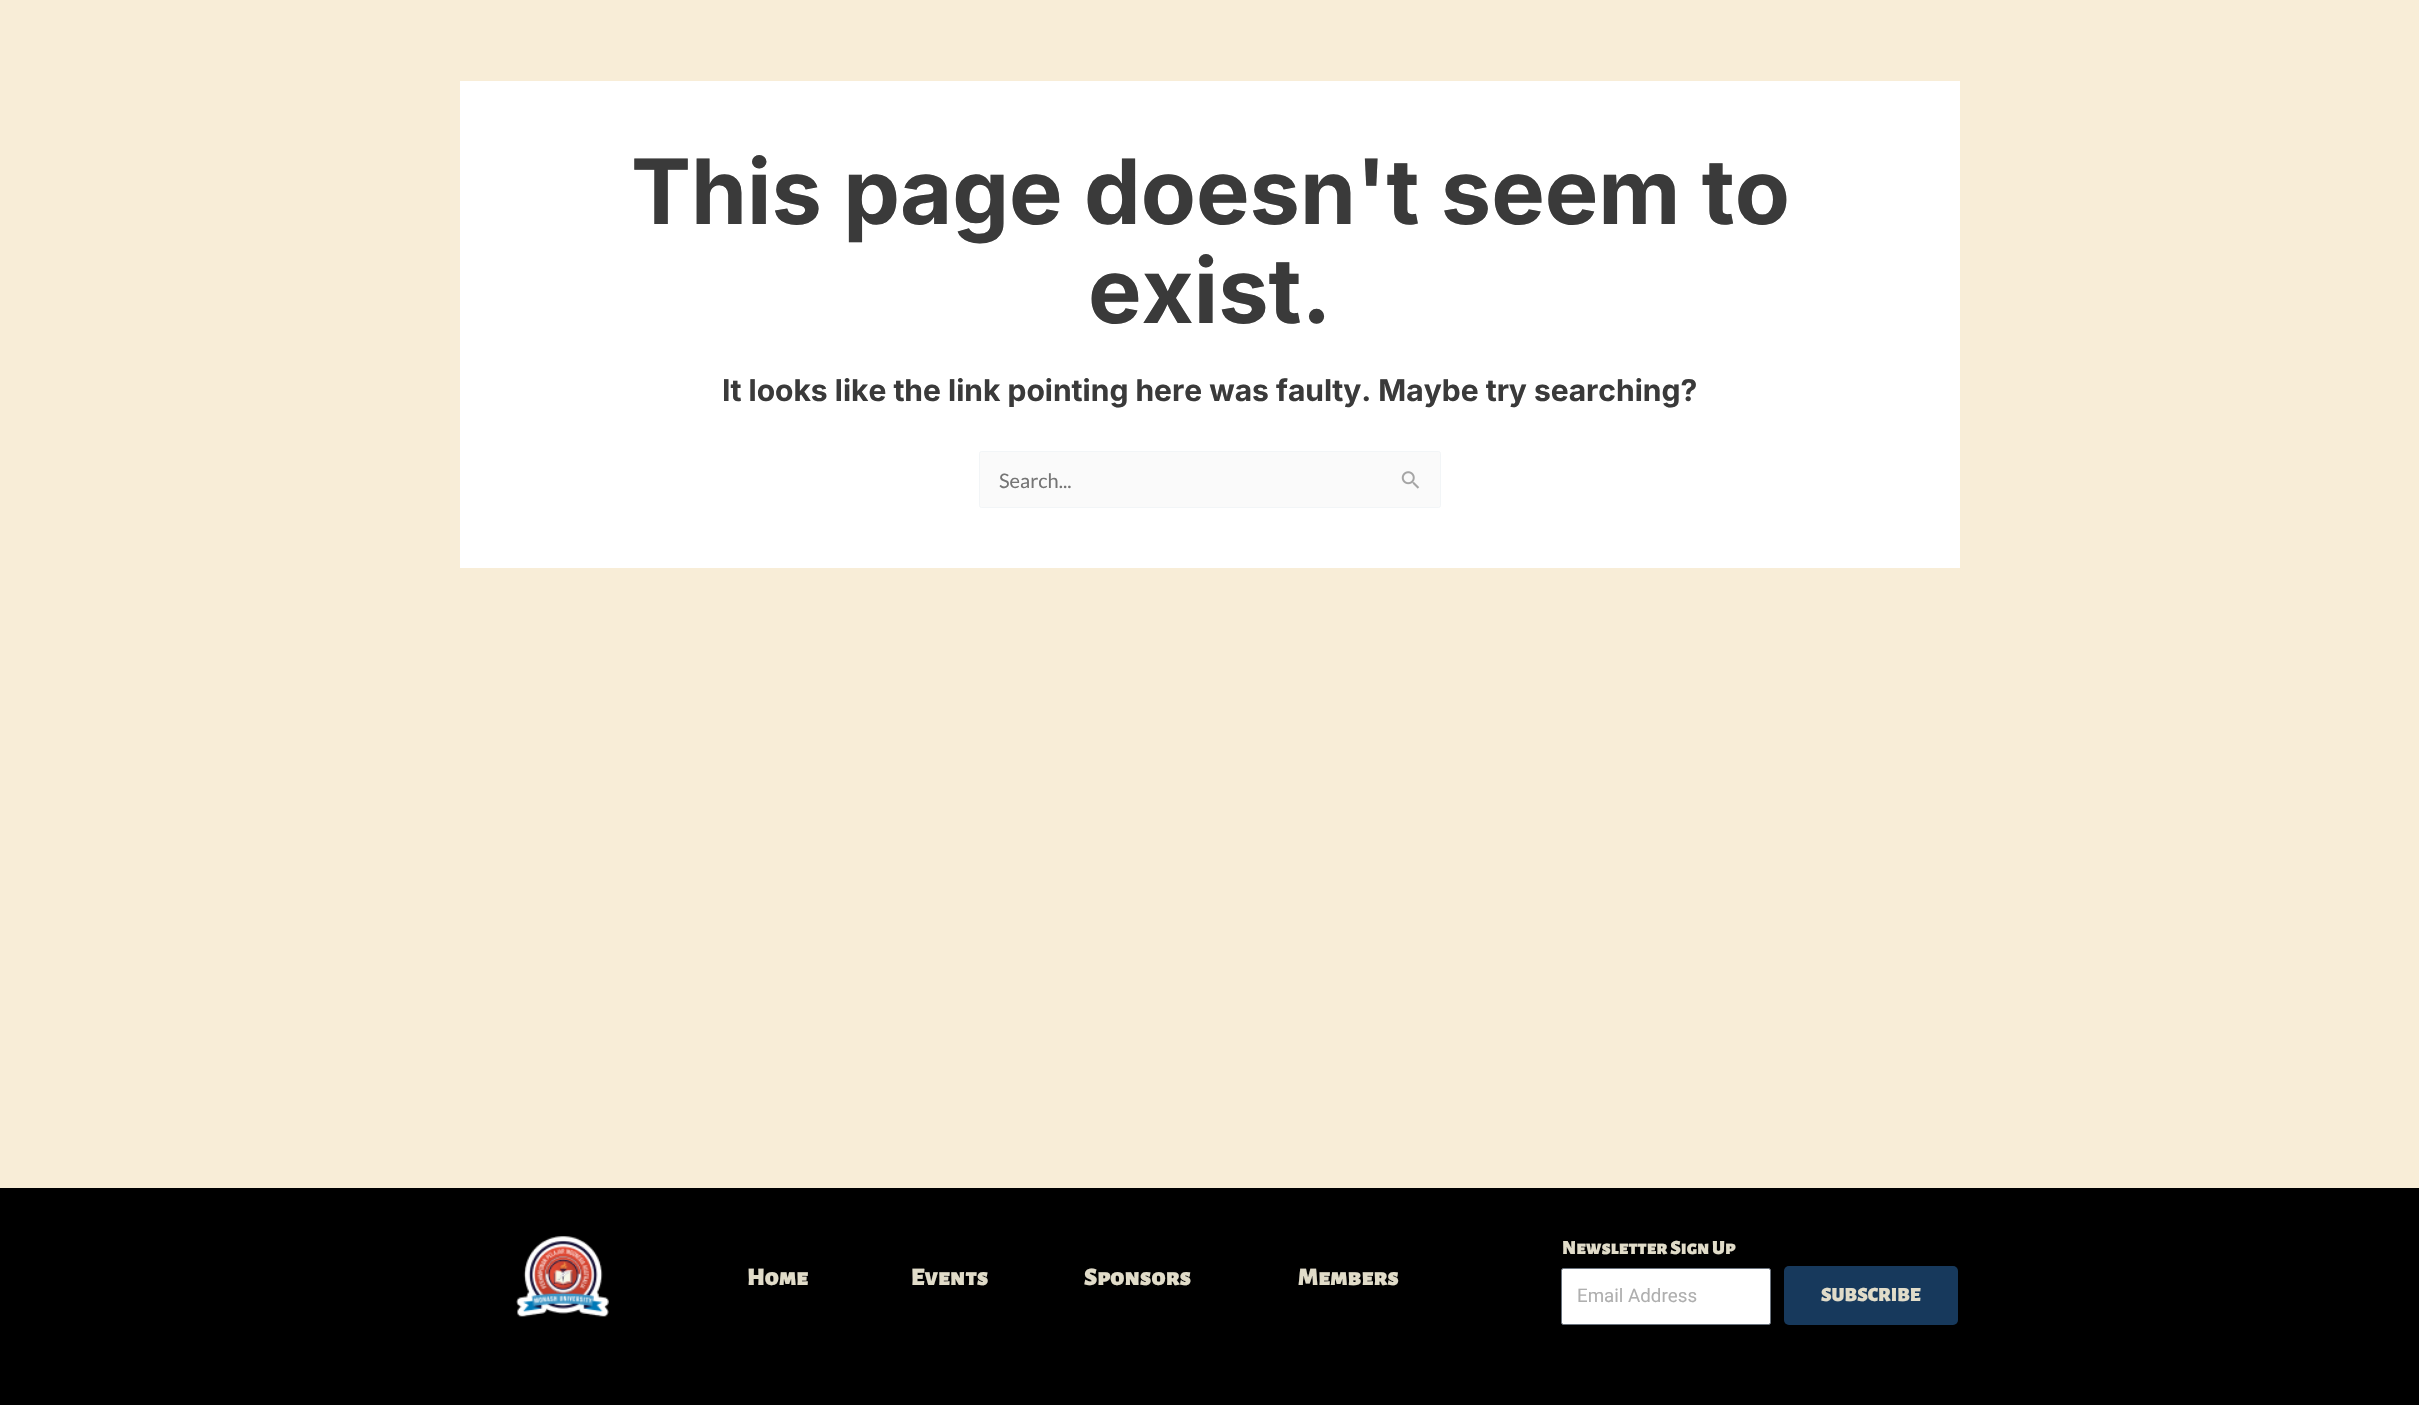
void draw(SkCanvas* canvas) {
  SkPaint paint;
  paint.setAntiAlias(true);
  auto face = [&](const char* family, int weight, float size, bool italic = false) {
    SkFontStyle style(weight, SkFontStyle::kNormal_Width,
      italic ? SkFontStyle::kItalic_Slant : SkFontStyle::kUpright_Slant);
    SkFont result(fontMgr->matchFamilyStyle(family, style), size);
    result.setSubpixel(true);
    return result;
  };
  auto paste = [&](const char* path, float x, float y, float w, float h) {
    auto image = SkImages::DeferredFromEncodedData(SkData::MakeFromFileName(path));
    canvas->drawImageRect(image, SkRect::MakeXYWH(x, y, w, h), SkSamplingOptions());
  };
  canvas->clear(0xfff8edd7);
  paint.setColor(0xffffffff);
  canvas->drawRect(SkRect::MakeXYWH(460, 81, 1500, 487), paint);
  paint.setColor(0xfffafafa);
  canvas->drawRoundRect(SkRect::MakeXYWH(979.5f, 451.5f, 461, 56), 2, 2, paint);
  paint.setStroke(true);
  paint.setStrokeWidth(1);
  paint.setColor(0xfff2f5f7);
  canvas->drawRoundRect(SkRect::MakeXYWH(979.5f, 451.5f, 461, 56), 2, 2, paint);
  paste("img/1.png", 1401, 471, 19, 18);
  paint.setStroke(false);
  paint.setColor(0xff000000);
  canvas->drawRect(SkRect::MakeXYWH(0, 1188, 2419, 217), paint);
  paste("img/2.png", 516, 1236, 93, 81);
  paint.setColor(0xffffffff);
  canvas->drawRoundRect(SkRect::MakeXYWH(1561.5f, 1268.5f, 209, 56), 2, 2, paint);
  paint.setStroke(true);
  paint.setColor(0xff69727d);
  canvas->drawRoundRect(SkRect::MakeXYWH(1561.5f, 1268.5f, 209, 56), 2, 2, paint);
  paint.setStroke(false);
  paint.setColor(0xff17395c);
  canvas->drawRoundRect(SkRect::MakeXYWH(1784, 1266, 174, 59), 5, 5, paint);
  auto f0 = face("Inter", 700, 90);
  paint.setColor(0xff3a3a3a);
  canvas->drawString("This page doesn't seem to", 631, 224, f0, paint);
  canvas->drawString("exist.", 1088, 323, f0, paint);
  auto f1 = face("Inter", 700, 30);
  canvas->drawString("It looks like the link pointing here was faulty. Maybe try searching?", 722, 401, f1, paint);
  auto f2 = face("Lato", 400, 20);
  paint.setColor(0xff757575);
  canvas->drawString("Search...", 999, 488, f2, paint);
  auto f3 = face("Alegreya Sans SC", 900, 25);
  paint.setColor(0xffe1dcc9);
  {
    const struct { const char* s; float x, y; } items[] = {
      {"Home", 747, 1285},
      {"Events", 911, 1285},
      {"Sponsors", 1084, 1285},
      {"Members", 1298, 1285},
    };
    for (auto [s, x, y] : items) {
      canvas->drawString(s, x, y, f3, paint);
    }
  }
  auto f4 = face("Alegreya Sans SC", 900, 20);
  canvas->drawString("Newsletter Sign Up", 1562, 1254, f4, paint);
  auto f5 = face("Roboto", 400, 18.75f);
  paint.setColor(0xffafafaf);
  canvas->drawString("Email Address", 1577, 1302, f5, paint);
  paint.setColor(0xffe1dcc9);
  canvas->drawString("SUBSCRIBE", 1821, 1301, f4, paint);
}
